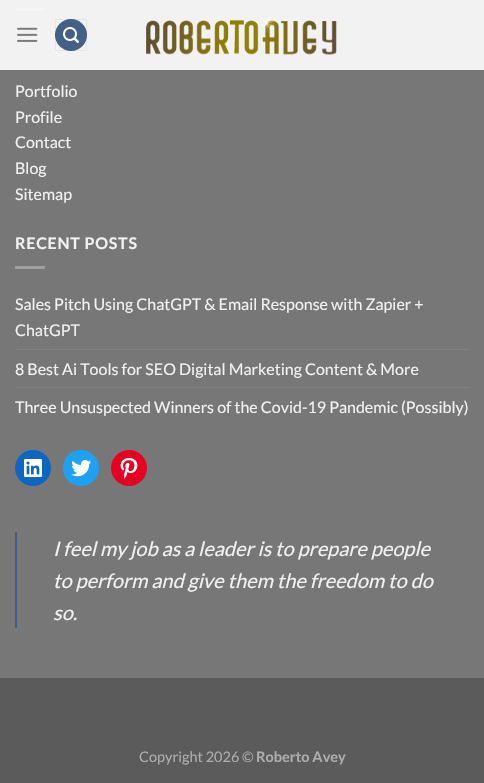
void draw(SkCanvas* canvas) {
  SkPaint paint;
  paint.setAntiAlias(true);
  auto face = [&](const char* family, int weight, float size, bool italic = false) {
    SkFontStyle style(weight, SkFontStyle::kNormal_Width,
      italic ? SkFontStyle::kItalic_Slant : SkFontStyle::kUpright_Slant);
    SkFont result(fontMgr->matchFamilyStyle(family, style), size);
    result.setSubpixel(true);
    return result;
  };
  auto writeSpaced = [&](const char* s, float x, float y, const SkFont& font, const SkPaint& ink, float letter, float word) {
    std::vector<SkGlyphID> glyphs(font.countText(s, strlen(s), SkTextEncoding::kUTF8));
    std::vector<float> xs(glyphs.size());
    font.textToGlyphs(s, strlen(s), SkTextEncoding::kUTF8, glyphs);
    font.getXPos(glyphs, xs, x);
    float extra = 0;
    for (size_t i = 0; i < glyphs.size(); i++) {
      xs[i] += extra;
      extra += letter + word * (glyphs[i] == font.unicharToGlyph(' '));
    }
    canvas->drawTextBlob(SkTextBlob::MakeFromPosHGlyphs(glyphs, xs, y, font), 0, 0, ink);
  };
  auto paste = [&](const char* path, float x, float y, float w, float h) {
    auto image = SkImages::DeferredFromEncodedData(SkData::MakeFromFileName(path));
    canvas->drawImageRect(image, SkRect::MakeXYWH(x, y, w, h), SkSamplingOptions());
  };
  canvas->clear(0xff777777);
  paint.setColor(0xffa0a0a0);
  canvas->drawRect(SkRect::MakeXYWH(15, 8, 30, 3), paint);
  paint.setColor(0xe6ffffff);
  canvas->drawRect(SkRect::MakeXYWH(0, 0, 484, 70), paint);
  paste("img/1.png", 17, 27, 21, 15);
  paint.setColor(0xff446084);
  canvas->drawCircle(71, 35, 16, paint);
  paint.setStroke(true);
  paint.setStrokeWidth(1);
  paint.setColor(0x0d000000);
  canvas->drawRect(SkRect::MakeXYWH(55.5f, 19.5f, 31, 31), paint);
  paste("img/2.png", 63, 27, 16, 16);
  paste("img/3.png", 146, 17, 191, 38);
  paint.setStroke(false);
  {
    const struct { float x, y, w, h; SkColor color; } items[] = {
      {15, 266, 30, 3, 0xffa0a0a0},
      {15, 349, 454, 1, 0xff828282},
      {15, 387, 454, 1, 0xff828282},
    };
    for (auto [x, y, w, h, color] : items) {
      paint.setColor(color);
      canvas->drawRect(SkRect::MakeXYWH(x, y, w, h), paint);
    }
  }
  paint.setColor(0xff0d66c2);
  canvas->drawCircle(33, 468, 18, paint);
  paste("img/4.png", 24, 459, 18, 18);
  paint.setColor(0xff1da1f2);
  canvas->drawCircle(81, 468, 18, paint);
  paste("img/5.png", 71, 460, 20, 17);
  paint.setColor(0xffe60122);
  canvas->drawCircle(129, 468, 18, paint);
  paste("img/6.png", 120, 458, 18, 21);
  paint.setColor(0xff446084);
  canvas->drawRect(SkRect::MakeXYWH(15, 532, 2, 96), paint);
  paint.setColor(0xff5b5b5b);
  canvas->drawRect(SkRect::MakeXYWH(0, 678, 484, 105), paint);
  auto f0 = face("Lato", 400, 16);
  paint.setColor(0xfff1f1f1);
  {
    const struct { const char* s; float x, y; } items[] = {
      {"Portfolio", 15, 97},
      {"Profile", 15, 123},
      {"Contact", 15, 148},
      {"Blog", 15, 174},
      {"Sitemap", 15, 200},
    };
    for (auto [s, x, y] : items) {
      canvas->drawString(s, x, y, f0, paint);
    }
  }
  auto f1 = face("Lato", 700, 16);
  writeSpaced("RECENT POSTS", 15, 249, f1, paint, 0.75f, 0);
  {
    const struct { const char* s; float x, y; } items[] = {
      {"Sales Pitch Using ChatGPT & Email Response with Zapier +", 15, 310},
      {"ChatGPT", 15, 336},
      {"8 Best Ai Tools for SEO Digital Marketing Content & More", 15, 375},
      {"Three Unsuspected Winners of the Covid-19 Pandemic (Possibly)", 15, 413},
    };
    for (auto [s, x, y] : items) {
      canvas->drawString(s, x, y, f0, paint);
    }
  }
  auto f2 = face("Lato", 400, 20, true);
  {
    const struct { const char* s; float x, y; } items[] = {
      {"I feel my job as a leader is to prepare people", 53, 556},
      {"to perform and give them the freedom to do", 53, 588},
      {"so.", 53, 620},
    };
    for (auto [s, x, y] : items) {
      canvas->drawString(s, x, y, f2, paint);
    }
  }
  auto f3 = face("Lato", 400, 14.5f);
  paint.setColor(0xffadadad);
  canvas->drawString("Copyright 2026 ©", 139, 762, f3, paint);
  auto f4 = face("Lato", 700, 14.5f);
  canvas->drawString("Roberto Avey", 256, 762, f4, paint);
}
